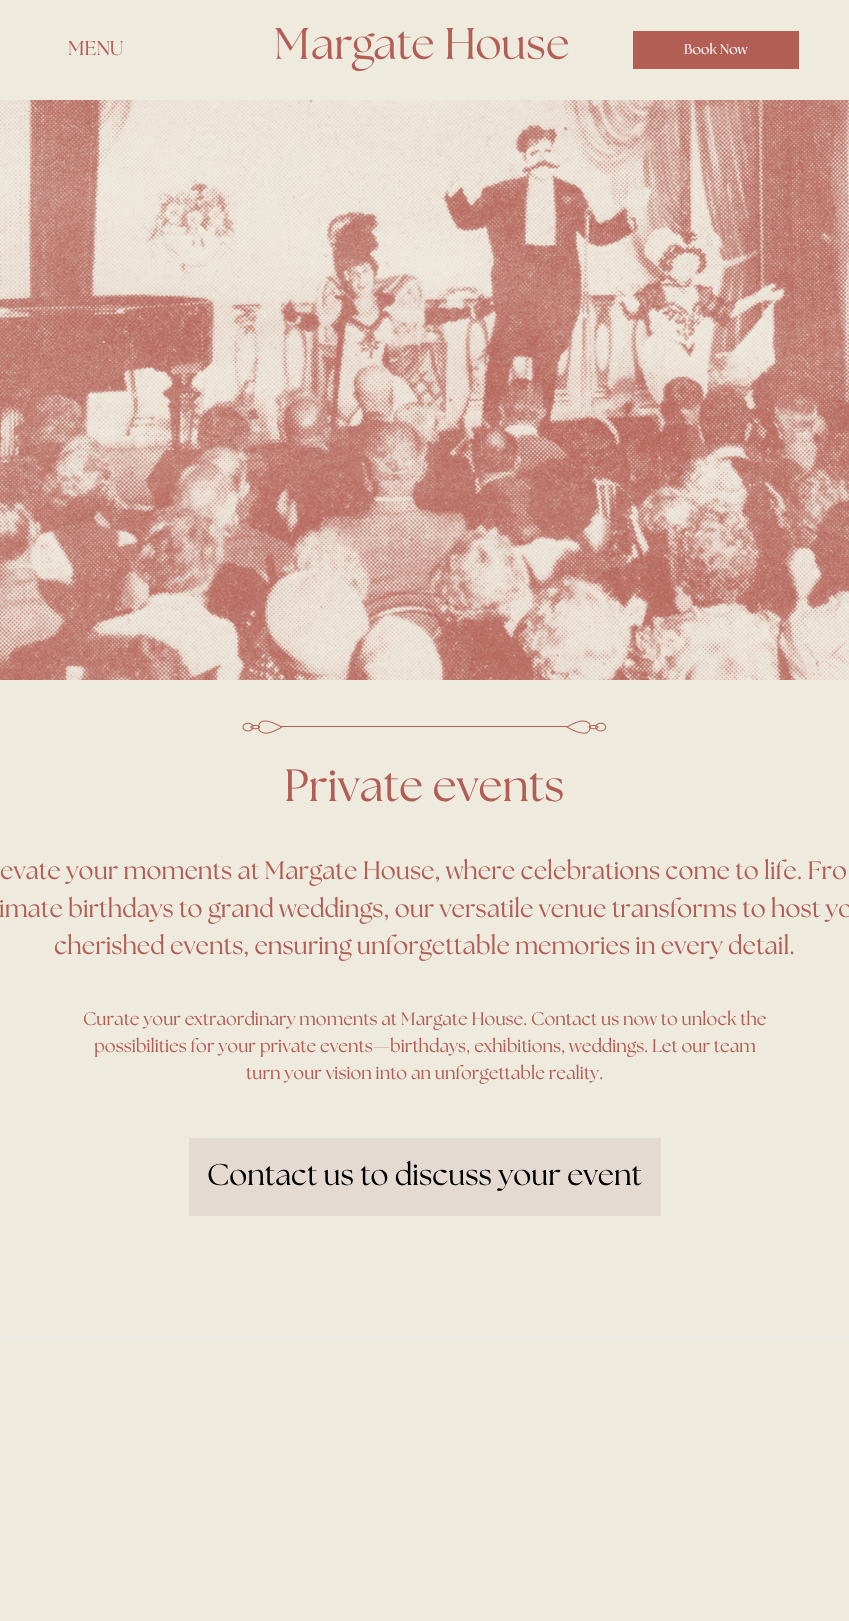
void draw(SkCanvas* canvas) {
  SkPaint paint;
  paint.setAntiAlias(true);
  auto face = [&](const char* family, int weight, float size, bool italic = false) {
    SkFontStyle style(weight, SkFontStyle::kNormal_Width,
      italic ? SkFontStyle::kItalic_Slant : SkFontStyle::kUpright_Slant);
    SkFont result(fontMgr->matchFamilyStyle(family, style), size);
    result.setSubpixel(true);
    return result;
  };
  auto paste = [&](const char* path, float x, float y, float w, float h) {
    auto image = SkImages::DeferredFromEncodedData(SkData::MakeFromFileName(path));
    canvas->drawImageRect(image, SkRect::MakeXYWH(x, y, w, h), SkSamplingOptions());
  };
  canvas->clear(0xffefeade);
  paste("img/1.png", 275, 28, 294, 43);
  paint.setColor(0xffb25e54);
  canvas->drawRect(SkRect::MakeXYWH(633, 31, 166, 38), paint);
  paint.setColor(0xffe4ebf3);
  canvas->drawRect(SkRect::MakeXYWH(0, 1336, 849, 1), paint);
  paste("img/2.png", 0, 100, 849, 580);
  paste("img/3.png", 242, 720, 365, 14);
  paint.setColor(0xffe4dad1);
  canvas->drawRect(SkRect::MakeXYWH(189, 1138, 472, 78), paint);
  auto f0 = face("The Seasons", 400, 20);
  paint.setColor(0xffb25e54);
  canvas->drawString("MENU", 68, 55, f0, paint);
  auto f1 = face("The Seasons", 400, 14);
  paint.setColor(0xffffffff);
  canvas->drawString("Book Now", 684, 54, f1, paint);
  auto f2 = face("The Seasons", 400, 45);
  paint.setColor(0xffb25e54);
  canvas->drawString("Private events", 284, 801, f2, paint);
  auto f3 = face("The Seasons", 400, 25);
  {
    const struct { const char* s; float x, y; } items[] = {
      {"evate your moments at Margate House, where celebrations come to life. Fro", 0, 879},
      {"imate birthdays to grand weddings, our versatile venue transforms to host yo", -1, 917},
      {"cherished events, ensuring unforgettable memories in every detail.", 54, 954},
    };
    for (auto [s, x, y] : items) {
      canvas->drawString(s, x, y, f3, paint);
    }
  }
  auto f4 = face("The Seasons", 400, 18);
  {
    const struct { const char* s; float x, y; } items[] = {
      {"Curate your extraordinary moments at Margate House. Contact us now to unlock the", 83, 1025},
      {"possibilities for your private events—birthdays, exhibitions, weddings. Let our team", 94, 1052},
      {"turn your vision into an unforgettable reality.", 246, 1079},
    };
    for (auto [s, x, y] : items) {
      canvas->drawString(s, x, y, f4, paint);
    }
  }
  auto f5 = face("The Seasons", 400, 30);
  paint.setColor(0xff000000);
  canvas->drawString("Contact us to discuss your event", 207, 1185, f5, paint);
}
